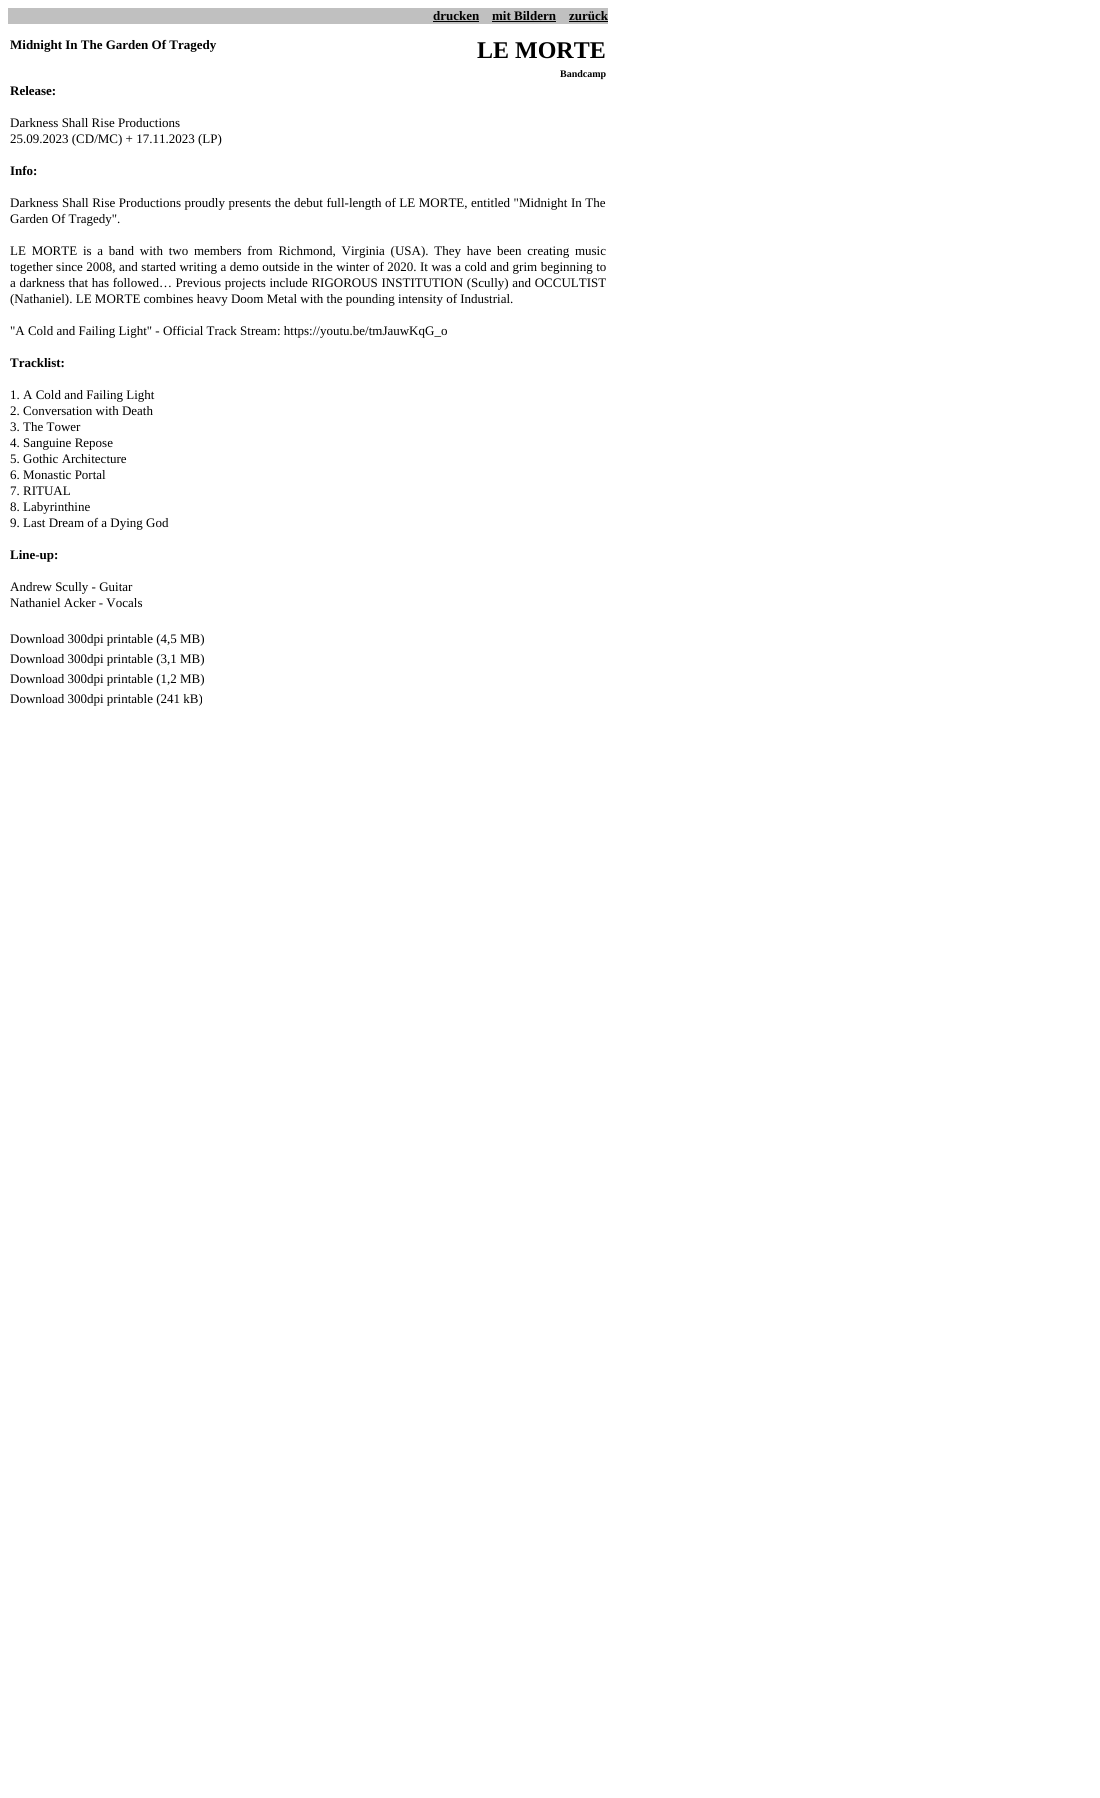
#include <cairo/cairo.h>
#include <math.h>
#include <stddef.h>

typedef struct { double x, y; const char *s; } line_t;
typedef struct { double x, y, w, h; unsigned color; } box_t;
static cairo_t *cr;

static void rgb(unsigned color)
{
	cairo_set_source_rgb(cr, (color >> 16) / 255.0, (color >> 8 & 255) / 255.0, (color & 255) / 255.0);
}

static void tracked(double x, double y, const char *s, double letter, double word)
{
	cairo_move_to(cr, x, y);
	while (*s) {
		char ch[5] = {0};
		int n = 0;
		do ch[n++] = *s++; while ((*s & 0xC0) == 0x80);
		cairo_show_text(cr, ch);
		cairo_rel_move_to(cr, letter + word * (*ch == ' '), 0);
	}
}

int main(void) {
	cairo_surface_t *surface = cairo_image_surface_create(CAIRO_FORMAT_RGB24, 1100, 1798);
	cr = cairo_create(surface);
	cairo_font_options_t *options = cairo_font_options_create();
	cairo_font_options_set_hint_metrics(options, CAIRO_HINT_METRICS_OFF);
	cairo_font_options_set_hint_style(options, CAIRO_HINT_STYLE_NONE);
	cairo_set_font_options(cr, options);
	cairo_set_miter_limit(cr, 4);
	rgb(0xffffff);
	cairo_paint(cr);
	{
		static const box_t items[] = {
			{8, 8, 600, 16, 0xc0c0c0},
			{433, 21, 46, 1, 0x000000},
			{492, 21, 64, 1, 0x000000},
			{569, 21, 39, 1, 0x000000},
		};
		for (size_t i = 0; i < sizeof items / sizeof *items; i++) {
			rgb(items[i].color);
			cairo_rectangle(cr, items[i].x, items[i].y, items[i].w, items[i].h);
			cairo_fill(cr);
		}
	}
	cairo_select_font_face(cr, "Liberation Serif", CAIRO_FONT_SLANT_NORMAL, CAIRO_FONT_WEIGHT_BOLD);
	cairo_set_font_size(cr, 13);
	{
		static const line_t items[] = {
			{433, 20, "drucken"},
			{492, 20, "mit Bildern"},
			{569, 20, "zurück"},
			{10, 49, "Midnight In The Garden Of Tragedy"},
		};
		for (size_t i = 0; i < sizeof items / sizeof *items; i++) {
			cairo_move_to(cr, items[i].x, items[i].y);
			cairo_show_text(cr, items[i].s);
		}
	}
	cairo_set_font_size(cr, 24);
	cairo_move_to(cr, 477, 58);
	cairo_show_text(cr, "LE MORTE");
	cairo_set_font_size(cr, 10);
	cairo_move_to(cr, 560, 77);
	cairo_show_text(cr, "Bandcamp");
	cairo_set_font_size(cr, 13);
	cairo_move_to(cr, 10, 95);
	cairo_show_text(cr, "Release:");
	cairo_select_font_face(cr, "Liberation Serif", CAIRO_FONT_SLANT_NORMAL, CAIRO_FONT_WEIGHT_NORMAL);
	cairo_move_to(cr, 10, 127);
	cairo_show_text(cr, "Darkness Shall Rise Productions");
	cairo_move_to(cr, 10, 143);
	cairo_show_text(cr, "25.09.2023 (CD/MC) + 17.11.2023 (LP)");
	cairo_select_font_face(cr, "Liberation Serif", CAIRO_FONT_SLANT_NORMAL, CAIRO_FONT_WEIGHT_BOLD);
	cairo_move_to(cr, 10, 175);
	cairo_show_text(cr, "Info:");
	cairo_select_font_face(cr, "Liberation Serif", CAIRO_FONT_SLANT_NORMAL, CAIRO_FONT_WEIGHT_NORMAL);
	tracked(10, 207, "Darkness Shall Rise Productions proudly presents the debut full-length of LE MORTE, entitled \"Midnight In The", 0, 0.3);
	cairo_move_to(cr, 10, 223);
	cairo_show_text(cr, "Garden Of Tragedy\".");
	tracked(10, 255, "LE MORTE is a band with two members from Richmond, Virginia (USA). They have been creating music", 0, 2.5);
	tracked(10, 271, "together since 2008, and started writing a demo outside in the winter of 2020. It was a cold and grim beginning to", 0, 0.25);
	tracked(10, 287, "a darkness that has followed… Previous projects include RIGOROUS INSTITUTION (Scully) and OCCULTIST", 0, 0.4);
	cairo_move_to(cr, 10, 303);
	cairo_show_text(cr, "(Nathaniel). LE MORTE combines heavy Doom Metal with the pounding intensity of Industrial.");
	cairo_move_to(cr, 10, 335);
	cairo_show_text(cr, "\"A Cold and Failing Light\" - Official Track Stream: https://youtu.be/tmJauwKqG_o");
	cairo_select_font_face(cr, "Liberation Serif", CAIRO_FONT_SLANT_NORMAL, CAIRO_FONT_WEIGHT_BOLD);
	cairo_move_to(cr, 10, 367);
	cairo_show_text(cr, "Tracklist:");
	cairo_select_font_face(cr, "Liberation Serif", CAIRO_FONT_SLANT_NORMAL, CAIRO_FONT_WEIGHT_NORMAL);
	{
		static const line_t items[] = {
			{10, 399, "1. A Cold and Failing Light"},
			{10, 415, "2. Conversation with Death"},
			{10, 431, "3. The Tower"},
			{10, 447, "4. Sanguine Repose"},
			{10, 463, "5. Gothic Architecture"},
			{10, 479, "6. Monastic Portal"},
			{10, 495, "7. RITUAL"},
			{10, 511, "8. Labyrinthine"},
			{10, 527, "9. Last Dream of a Dying God"},
		};
		for (size_t i = 0; i < sizeof items / sizeof *items; i++) {
			cairo_move_to(cr, items[i].x, items[i].y);
			cairo_show_text(cr, items[i].s);
		}
	}
	cairo_select_font_face(cr, "Liberation Serif", CAIRO_FONT_SLANT_NORMAL, CAIRO_FONT_WEIGHT_BOLD);
	cairo_move_to(cr, 10, 559);
	cairo_show_text(cr, "Line-up:");
	cairo_select_font_face(cr, "Liberation Serif", CAIRO_FONT_SLANT_NORMAL, CAIRO_FONT_WEIGHT_NORMAL);
	{
		static const line_t items[] = {
			{10, 591, "Andrew Scully - Guitar"},
			{10, 607, "Nathaniel Acker - Vocals"},
			{10, 643, "Download 300dpi printable (4,5 MB)"},
			{10, 663, "Download 300dpi printable (3,1 MB)"},
			{10, 683, "Download 300dpi printable (1,2 MB)"},
			{10, 703, "Download 300dpi printable (241 kB)"},
		};
		for (size_t i = 0; i < sizeof items / sizeof *items; i++) {
			cairo_move_to(cr, items[i].x, items[i].y);
			cairo_show_text(cr, items[i].s);
		}
	}
	cairo_surface_write_to_png(surface, "page.png");
	cairo_font_options_destroy(options);
	cairo_destroy(cr);
	cairo_surface_destroy(surface);
	return 0;
}
